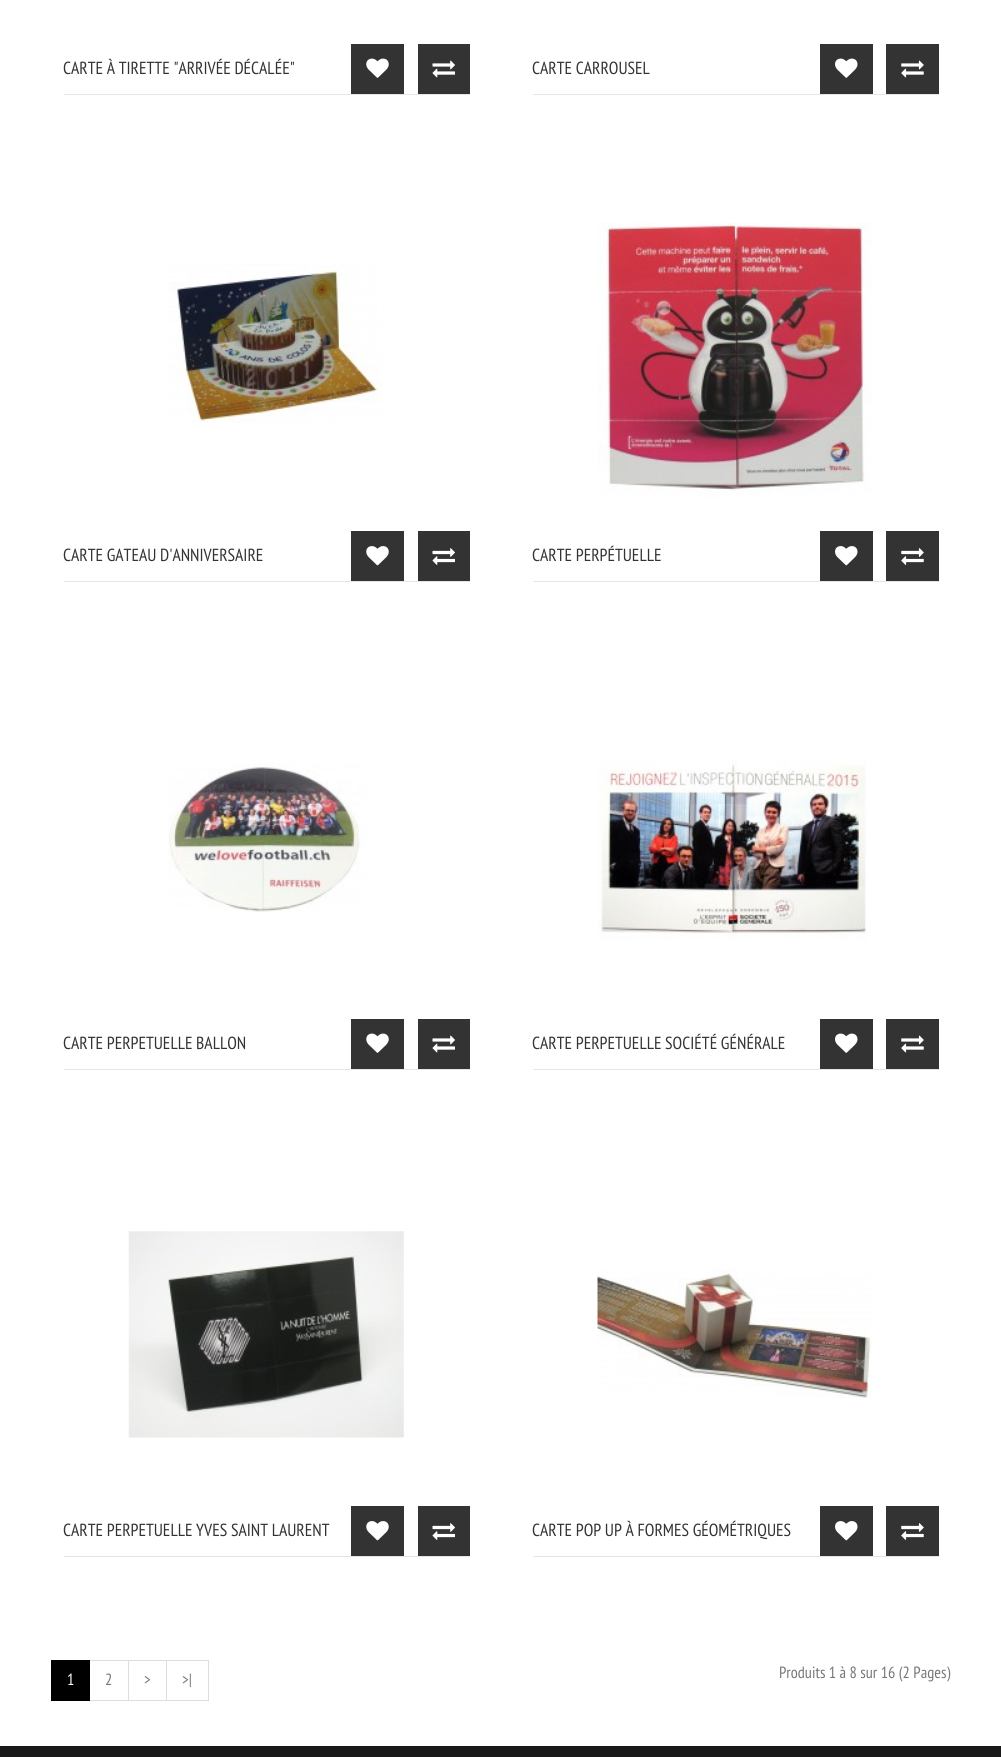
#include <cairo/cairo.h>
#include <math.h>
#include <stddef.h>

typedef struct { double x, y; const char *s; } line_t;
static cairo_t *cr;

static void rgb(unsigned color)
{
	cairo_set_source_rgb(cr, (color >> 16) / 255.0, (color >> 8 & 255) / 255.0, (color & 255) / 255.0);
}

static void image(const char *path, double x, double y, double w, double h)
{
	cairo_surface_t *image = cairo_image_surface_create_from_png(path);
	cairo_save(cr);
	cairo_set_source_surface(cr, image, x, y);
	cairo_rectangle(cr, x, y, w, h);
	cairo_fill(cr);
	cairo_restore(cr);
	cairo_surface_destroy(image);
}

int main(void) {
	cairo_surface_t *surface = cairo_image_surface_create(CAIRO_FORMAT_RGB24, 1001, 1757);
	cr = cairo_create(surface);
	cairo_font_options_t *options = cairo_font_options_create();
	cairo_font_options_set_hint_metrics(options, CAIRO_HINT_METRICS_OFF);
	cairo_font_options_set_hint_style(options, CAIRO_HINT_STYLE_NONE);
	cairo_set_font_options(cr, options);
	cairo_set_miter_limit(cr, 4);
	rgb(0xffffff);
	cairo_paint(cr);
	rgb(0xe5e5e5);
	cairo_rectangle(cr, 64, 94, 406, 1);
	cairo_fill(cr);
	rgb(0x333333);
	cairo_rectangle(cr, 351, 44, 53, 50);
	cairo_fill(cr);
	image("img/1.png", 366, 58, 23, 20);
	cairo_rectangle(cr, 418, 44, 52, 50);
	cairo_fill(cr);
	image("img/2.png", 432, 60, 23, 18);
	rgb(0xe5e5e5);
	cairo_rectangle(cr, 533, 94, 406, 1);
	cairo_fill(cr);
	rgb(0x333333);
	cairo_rectangle(cr, 820, 44, 53, 50);
	cairo_fill(cr);
	image("img/3.png", 835, 58, 23, 20);
	cairo_rectangle(cr, 886, 44, 53, 50);
	cairo_fill(cr);
	image("img/4.png", 901, 60, 23, 18);
	image("img/5.png", 169, 263, 214, 160);
	rgb(0xe5e5e5);
	cairo_rectangle(cr, 64, 581, 406, 1);
	cairo_fill(cr);
	rgb(0x333333);
	cairo_rectangle(cr, 351, 531, 53, 50);
	cairo_fill(cr);
	image("img/6.png", 366, 546, 23, 20);
	cairo_rectangle(cr, 418, 531, 52, 50);
	cairo_fill(cr);
	image("img/7.png", 432, 548, 23, 17);
	image("img/8.png", 597, 222, 276, 276);
	rgb(0xe5e5e5);
	cairo_rectangle(cr, 533, 581, 406, 1);
	cairo_fill(cr);
	rgb(0x333333);
	cairo_rectangle(cr, 820, 531, 53, 50);
	cairo_fill(cr);
	image("img/9.png", 835, 546, 23, 20);
	cairo_rectangle(cr, 886, 531, 53, 50);
	cairo_fill(cr);
	image("img/10.png", 901, 548, 23, 17);
	image("img/11.png", 168, 763, 199, 149);
	rgb(0xe5e5e5);
	cairo_rectangle(cr, 64, 1069, 406, 1);
	cairo_fill(cr);
	rgb(0x333333);
	cairo_rectangle(cr, 351, 1019, 53, 50);
	cairo_fill(cr);
	image("img/1.png", 366, 1033, 23, 20);
	cairo_rectangle(cr, 418, 1019, 52, 50);
	cairo_fill(cr);
	image("img/2.png", 432, 1035, 23, 18);
	image("img/12.png", 597, 760, 270, 180);
	rgb(0xe5e5e5);
	cairo_rectangle(cr, 533, 1069, 406, 1);
	cairo_fill(cr);
	rgb(0x333333);
	cairo_rectangle(cr, 820, 1019, 53, 50);
	cairo_fill(cr);
	image("img/3.png", 835, 1033, 23, 20);
	cairo_rectangle(cr, 886, 1019, 53, 50);
	cairo_fill(cr);
	image("img/4.png", 901, 1035, 23, 18);
	image("img/13.png", 128, 1231, 276, 207);
	rgb(0xe5e5e5);
	cairo_rectangle(cr, 64, 1556, 406, 1);
	cairo_fill(cr);
	rgb(0x333333);
	cairo_rectangle(cr, 351, 1506, 53, 50);
	cairo_fill(cr);
	image("img/6.png", 366, 1521, 23, 20);
	cairo_rectangle(cr, 418, 1506, 52, 50);
	cairo_fill(cr);
	image("img/7.png", 432, 1523, 23, 17);
	image("img/14.png", 597, 1269, 276, 129);
	rgb(0xe5e5e5);
	cairo_rectangle(cr, 533, 1556, 406, 1);
	cairo_fill(cr);
	rgb(0x333333);
	cairo_rectangle(cr, 820, 1506, 53, 50);
	cairo_fill(cr);
	image("img/9.png", 835, 1521, 23, 20);
	cairo_rectangle(cr, 886, 1506, 53, 50);
	cairo_fill(cr);
	image("img/10.png", 901, 1523, 23, 17);
	cairo_rectangle(cr, 89.5, 1660.5, 39, 40);
	rgb(0xdddddd);
	cairo_set_line_width(cr, 1);
	cairo_stroke(cr);
	rgb(0x000000);
	cairo_rectangle(cr, 51, 1660, 39, 41);
	cairo_fill(cr);
	cairo_rectangle(cr, 128.5, 1660.5, 39, 40);
	rgb(0xdddddd);
	cairo_stroke(cr);
	rgb(0xffffff);
	cairo_rectangle(cr, 167, 1661, 1, 39);
	cairo_fill(cr);
	cairo_rectangle(cr, 166.5, 1660.5, 42, 40);
	rgb(0xdddddd);
	cairo_stroke(cr);
	rgb(0x191919);
	cairo_rectangle(cr, 0, 1746, 1001, 11);
	cairo_fill(cr);
	cairo_select_font_face(cr, "PT Sans Narrow", CAIRO_FONT_SLANT_NORMAL, CAIRO_FONT_WEIGHT_NORMAL);
	cairo_set_font_size(cr, 17.5);
	rgb(0x333333);
	{
		static const line_t items[] = {
			{63, 74, "CARTE À TIRETTE \"ARRIVÉE DÉCALÉE\""},
			{532, 74, "CARTE CARROUSEL"},
			{63, 561, "CARTE GATEAU D'ANNIVERSAIRE"},
			{532, 561, "CARTE PERPÉTUELLE"},
			{63, 1049, "CARTE PERPETUELLE BALLON"},
			{532, 1049, "CARTE PERPETUELLE SOCIÉTÉ GÉNÉRALE"},
			{63, 1536, "CARTE PERPETUELLE YVES SAINT LAURENT"},
			{532, 1536, "CARTE POP UP À FORMES GÉOMÉTRIQUES"},
		};
		for (size_t i = 0; i < sizeof items / sizeof *items; i++) {
			cairo_move_to(cr, items[i].x, items[i].y);
			cairo_show_text(cr, items[i].s);
		}
	}
	cairo_set_font_size(cr, 16.25);
	rgb(0xffffff);
	cairo_move_to(cr, 67, 1685);
	cairo_show_text(cr, "1");
	rgb(0x777777);
	{
		static const line_t items[] = {
			{105, 1685, "2"},
			{144, 1685, ">"},
			{182, 1685, ">|"},
			{779, 1678, "Produits 1 à 8 sur 16 (2 Pages)"},
		};
		for (size_t i = 0; i < sizeof items / sizeof *items; i++) {
			cairo_move_to(cr, items[i].x, items[i].y);
			cairo_show_text(cr, items[i].s);
		}
	}
	cairo_surface_write_to_png(surface, "page.png");
	cairo_font_options_destroy(options);
	cairo_destroy(cr);
	cairo_surface_destroy(surface);
	return 0;
}
